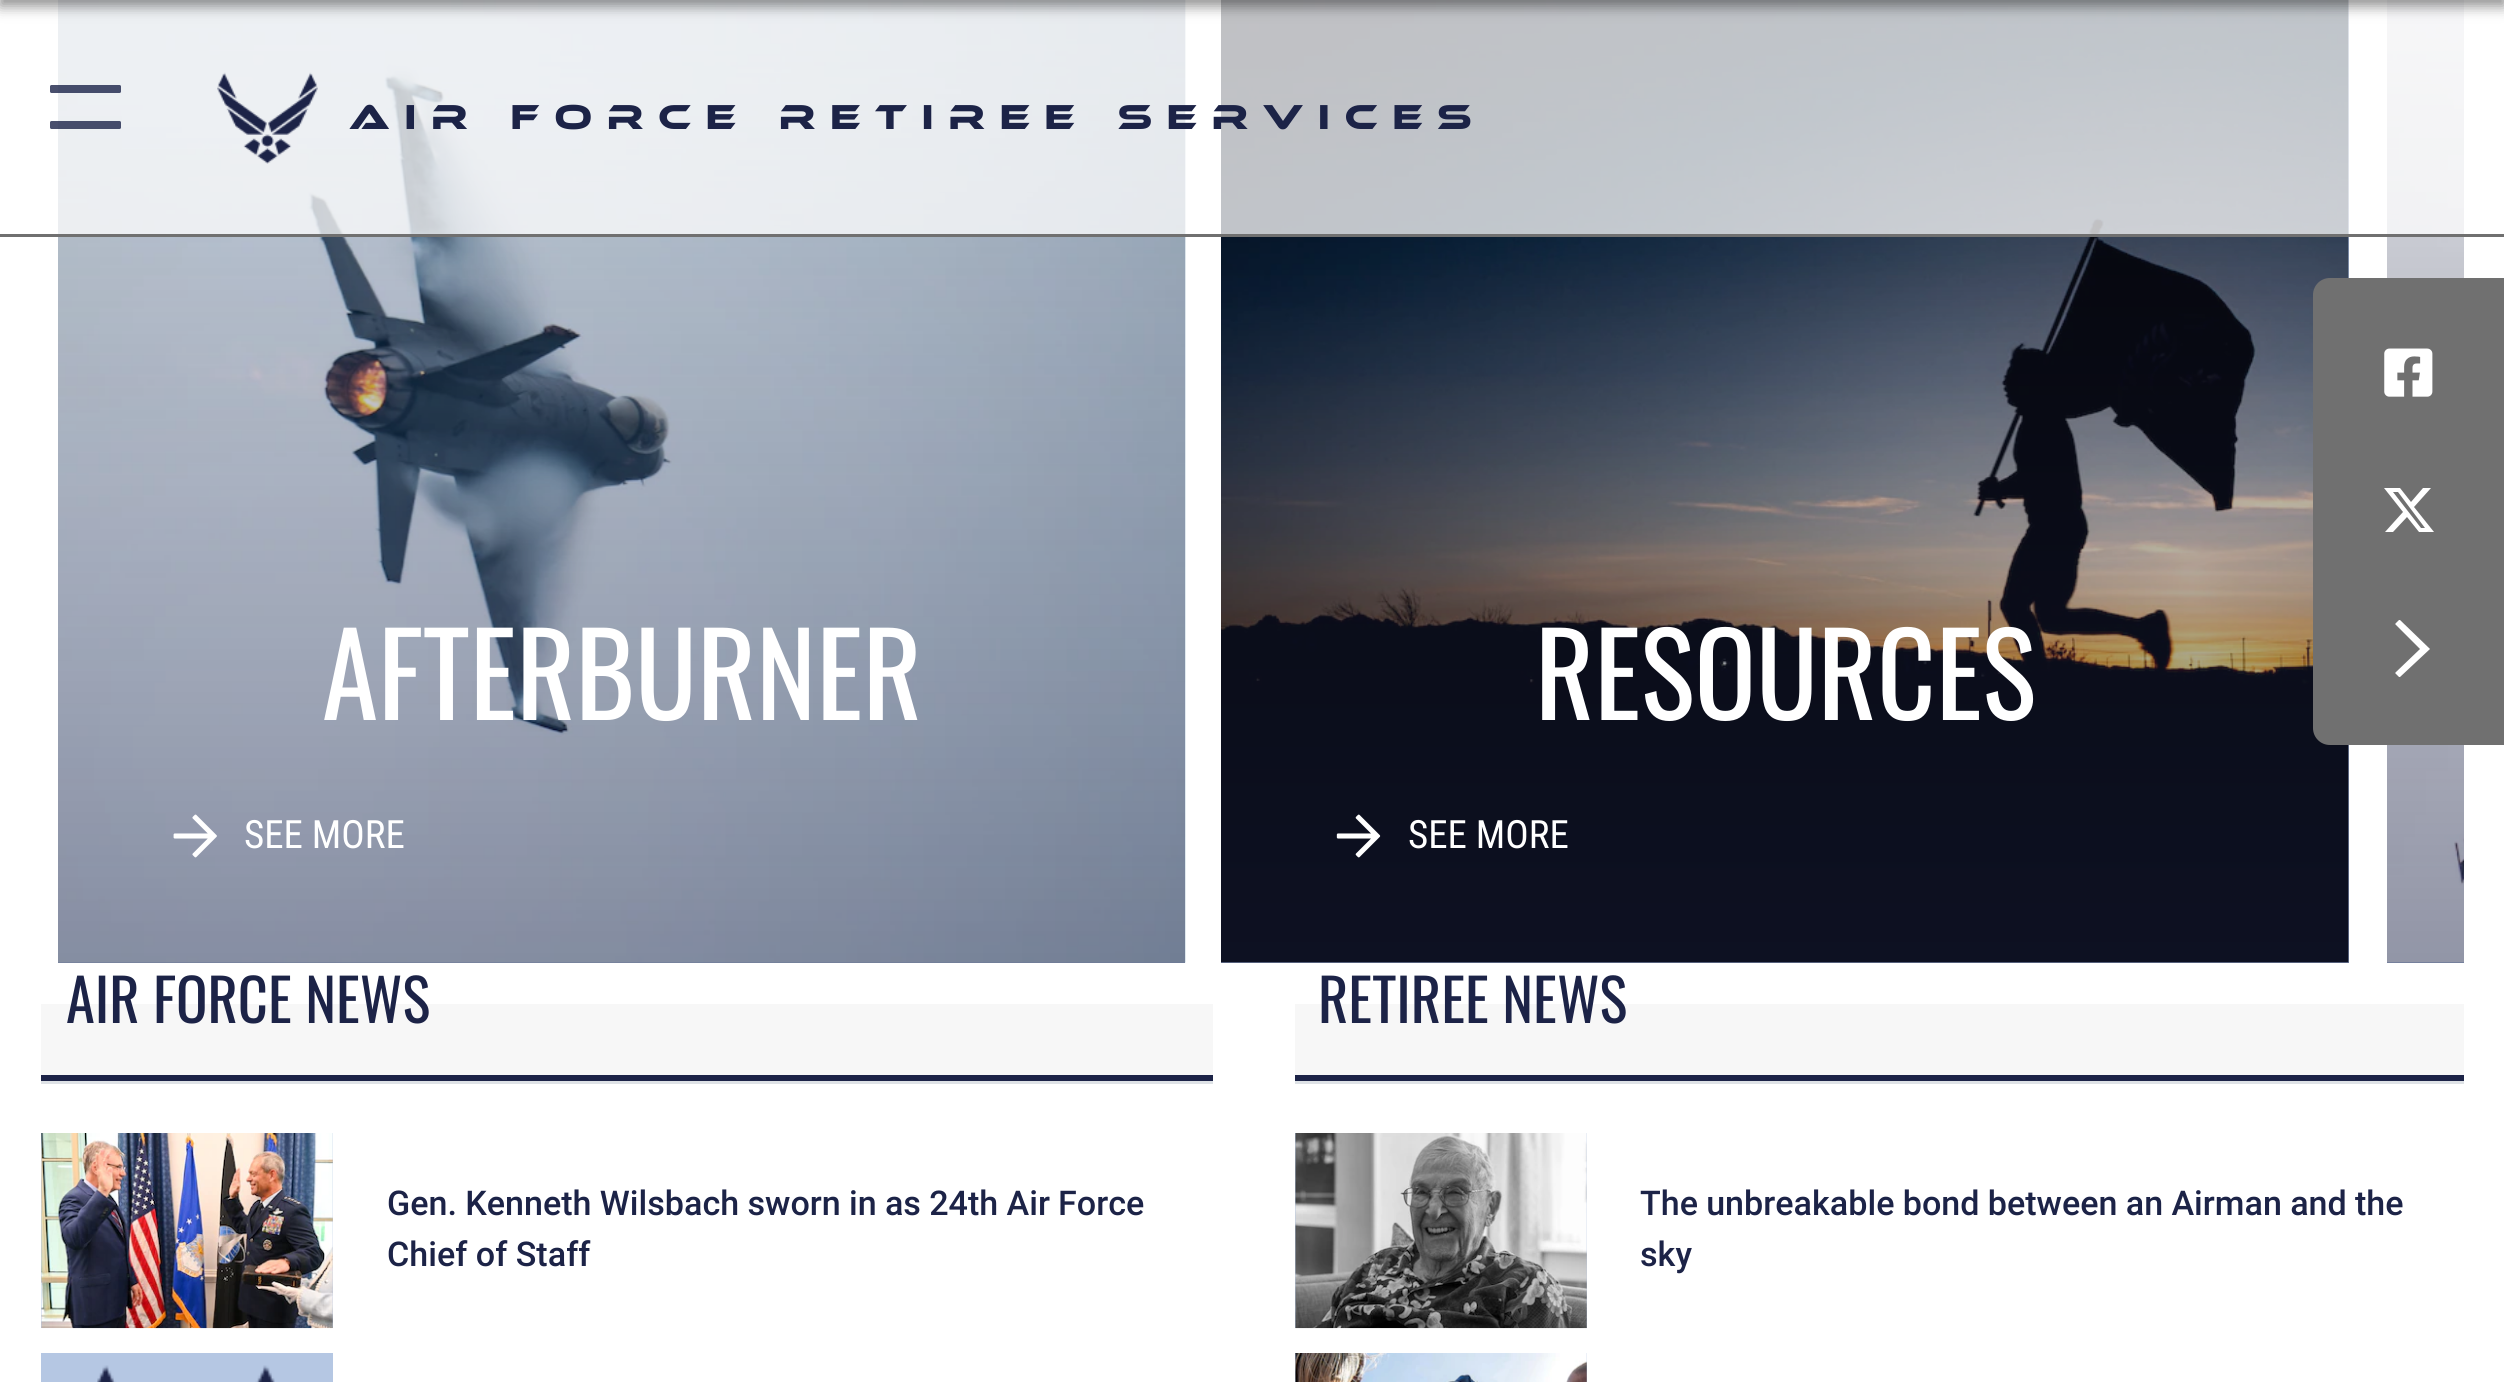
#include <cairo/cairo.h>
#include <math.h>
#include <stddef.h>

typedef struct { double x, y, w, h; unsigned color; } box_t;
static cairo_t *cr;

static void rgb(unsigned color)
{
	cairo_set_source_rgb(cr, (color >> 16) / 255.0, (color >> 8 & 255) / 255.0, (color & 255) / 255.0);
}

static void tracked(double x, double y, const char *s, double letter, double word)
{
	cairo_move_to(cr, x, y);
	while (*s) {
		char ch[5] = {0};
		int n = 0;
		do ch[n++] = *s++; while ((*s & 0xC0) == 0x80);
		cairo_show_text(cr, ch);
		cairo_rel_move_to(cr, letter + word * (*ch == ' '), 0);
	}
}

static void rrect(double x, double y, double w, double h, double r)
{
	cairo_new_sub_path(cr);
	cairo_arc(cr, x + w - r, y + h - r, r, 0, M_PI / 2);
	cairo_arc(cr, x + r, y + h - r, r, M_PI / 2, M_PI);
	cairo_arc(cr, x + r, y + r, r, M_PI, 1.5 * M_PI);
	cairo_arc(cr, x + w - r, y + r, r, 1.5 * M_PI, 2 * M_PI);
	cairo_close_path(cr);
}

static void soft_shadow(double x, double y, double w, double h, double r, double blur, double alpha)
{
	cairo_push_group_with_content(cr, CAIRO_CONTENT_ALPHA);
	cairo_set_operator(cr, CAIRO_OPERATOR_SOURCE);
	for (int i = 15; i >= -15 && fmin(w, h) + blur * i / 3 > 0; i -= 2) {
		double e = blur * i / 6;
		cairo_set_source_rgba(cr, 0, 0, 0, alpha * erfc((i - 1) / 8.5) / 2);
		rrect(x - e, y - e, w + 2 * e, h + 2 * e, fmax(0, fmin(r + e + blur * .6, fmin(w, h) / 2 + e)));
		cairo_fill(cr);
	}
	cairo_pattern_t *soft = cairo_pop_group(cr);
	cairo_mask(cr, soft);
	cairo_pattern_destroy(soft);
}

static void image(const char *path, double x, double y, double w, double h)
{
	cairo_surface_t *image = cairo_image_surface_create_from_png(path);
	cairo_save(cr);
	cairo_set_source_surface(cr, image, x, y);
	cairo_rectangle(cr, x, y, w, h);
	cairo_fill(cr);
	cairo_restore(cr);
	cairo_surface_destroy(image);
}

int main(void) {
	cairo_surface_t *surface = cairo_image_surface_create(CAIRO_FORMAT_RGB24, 2504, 1382);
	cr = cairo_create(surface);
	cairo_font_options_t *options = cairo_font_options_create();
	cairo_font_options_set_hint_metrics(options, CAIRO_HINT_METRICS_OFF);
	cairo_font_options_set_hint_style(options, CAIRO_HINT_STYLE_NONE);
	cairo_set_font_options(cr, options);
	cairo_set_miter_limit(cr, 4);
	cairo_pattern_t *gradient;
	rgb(0xffffff);
	cairo_paint(cr);
	rgb(0xb5c7e3);
	cairo_rectangle(cr, 58, 0, 1127, 963);
	cairo_fill(cr);
	image("img/3.png", 58, 0, 1128, 963);
	gradient = cairo_pattern_create_linear(622, 0, 622, 963);
	cairo_pattern_add_color_stop_rgba(gradient, 0.05, 0.11, 0.137, 0.278, 0.15);
	cairo_pattern_add_color_stop_rgba(gradient, 1, 0.11, 0.137, 0.278, 0.48);
	cairo_set_source(cr, gradient);
	cairo_pattern_destroy(gradient);
	cairo_rectangle(cr, 58, 0, 1127, 963);
	cairo_fill(cr);
	rgb(0xb5c7e3);
	cairo_rectangle(cr, 1221, 0, 1128, 963);
	cairo_fill(cr);
	image("img/5.png", 1221, 0, 1128, 963);
	gradient = cairo_pattern_create_linear(1785, 0, 1785, 963);
	cairo_pattern_add_color_stop_rgba(gradient, 0.05, 0.11, 0.137, 0.278, 0.15);
	cairo_pattern_add_color_stop_rgba(gradient, 1, 0.11, 0.137, 0.278, 0.48);
	cairo_set_source(cr, gradient);
	cairo_pattern_destroy(gradient);
	cairo_rectangle(cr, 1221, 0, 1128, 963);
	cairo_fill(cr);
	rgb(0xb5c7e3);
	cairo_rectangle(cr, 2387, 962, 77, 1);
	cairo_fill(cr);
	image("img/7.png", 2387, 0, 77, 963);
	gradient = cairo_pattern_create_linear(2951, 0, 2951, 963);
	cairo_pattern_add_color_stop_rgba(gradient, 0.05, 0.11, 0.137, 0.278, 0.15);
	cairo_pattern_add_color_stop_rgba(gradient, 1, 0.11, 0.137, 0.278, 0.48);
	cairo_set_source(cr, gradient);
	cairo_pattern_destroy(gradient);
	cairo_rectangle(cr, 2387, 0, 77, 963);
	cairo_fill(cr);
	cairo_set_source_rgba(cr, 1, 1, 1, 0.75);
	cairo_rectangle(cr, 58, 0, 2406, 234);
	cairo_fill(cr);
	rgb(0x000000);
	soft_shadow(0, -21, 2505, 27, 0, 7, 0.45);
	rgb(0x707070);
	cairo_rectangle(cr, 0, 234, 2504, 3);
	cairo_fill(cr);
	cairo_set_source_rgba(cr, 0.11, 0.141, 0.286, 0.8);
	rrect(50, 85, 71, 8, 1.5);
	cairo_fill(cr);
	rrect(50, 121, 71, 8, 1.5);
	cairo_fill(cr);
	image("img/1.png", 217, 72, 101, 92);
	rgb(0x707070);
	cairo_new_path(cr);
	cairo_move_to(cr, 2330, 278);
	cairo_line_to(cr, 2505, 278);
	cairo_line_to(cr, 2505, 745);
	cairo_line_to(cr, 2330, 745);
	cairo_curve_to(cr, 2320.5, 745, 2313, 737.5, 2313, 728);
	cairo_line_to(cr, 2313, 295);
	cairo_curve_to(cr, 2313, 285.5, 2320.5, 278, 2330, 278);
	cairo_close_path(cr);
	cairo_fill(cr);
	image("img/2.png", 2384, 348, 49, 49);
	rgb(0xffffff);
	cairo_new_path(cr);
	cairo_move_to(cr, 2423, 488);
	cairo_line_to(cr, 2431, 488);
	cairo_line_to(cr, 2414, 507);
	cairo_line_to(cr, 2434, 532);
	cairo_line_to(cr, 2419, 532);
	cairo_line_to(cr, 2407, 517);
	cairo_line_to(cr, 2393, 532);
	cairo_line_to(cr, 2385, 532);
	cairo_line_to(cr, 2403, 512);
	cairo_line_to(cr, 2384, 488);
	cairo_line_to(cr, 2400, 488);
	cairo_line_to(cr, 2411, 502);
	cairo_close_path(cr);
	cairo_move_to(cr, 2421, 528);
	cairo_line_to(cr, 2425, 528);
	cairo_line_to(cr, 2398, 492);
	cairo_line_to(cr, 2393, 492);
	cairo_close_path(cr);
	cairo_fill(cr);
	cairo_new_path(cr);
	cairo_move_to(cr, 2430, 649);
	cairo_line_to(cr, 2400, 620);
	cairo_line_to(cr, 2399, 620);
	cairo_line_to(cr, 2396, 623);
	cairo_curve_to(cr, 2395, 624, 2395, 624, 2396, 625);
	cairo_line_to(cr, 2420, 649);
	cairo_line_to(cr, 2396, 672);
	cairo_curve_to(cr, 2395, 673, 2395, 673, 2396, 674);
	cairo_line_to(cr, 2399, 677);
	cairo_line_to(cr, 2400, 677);
	cairo_close_path(cr);
	cairo_fill(cr);
	image("img/4.png", 173, 814, 44, 44);
	image("img/6.png", 1336, 814, 45, 44);
	gradient = cairo_pattern_create_linear(627, 963, 627, 1081);
	cairo_pattern_add_color_stop_rgba(gradient, 0, 1, 1, 1, 1);
	cairo_pattern_add_color_stop_rgba(gradient, 0.35, 1, 1, 1, 1);
	cairo_pattern_add_color_stop_rgba(gradient, 0.35, 0.969, 0.969, 0.969, 1);
	cairo_pattern_add_color_stop_rgba(gradient, 1, 0.969, 0.969, 0.969, 1);
	cairo_set_source(cr, gradient);
	cairo_pattern_destroy(gradient);
	cairo_rectangle(cr, 41, 1004, 1172, 71);
	cairo_fill(cr);
	{
		static const box_t items[] = {
			{41, 1081, 1172, 3, 0xdee2e6},
			{41, 1075, 1172, 6, 0x1c2347},
			{41, 1133, 292, 195, 0xb5c7e3},
		};
		for (size_t i = 0; i < sizeof items / sizeof *items; i++) {
			rgb(items[i].color);
			cairo_rectangle(cr, items[i].x, items[i].y, items[i].w, items[i].h);
			cairo_fill(cr);
		}
	}
	image("img/8.png", 41, 1133, 292, 196);
	cairo_rectangle(cr, 41, 1353, 292, 29);
	cairo_fill(cr);
	image("img/9.png", 97, 1365, 178, 17);
	gradient = cairo_pattern_create_linear(1880, 963, 1880, 1081);
	cairo_pattern_add_color_stop_rgba(gradient, 0, 1, 1, 1, 1);
	cairo_pattern_add_color_stop_rgba(gradient, 0.35, 1, 1, 1, 1);
	cairo_pattern_add_color_stop_rgba(gradient, 0.35, 0.969, 0.969, 0.969, 1);
	cairo_pattern_add_color_stop_rgba(gradient, 1, 0.969, 0.969, 0.969, 1);
	cairo_set_source(cr, gradient);
	cairo_pattern_destroy(gradient);
	cairo_rectangle(cr, 1295, 1004, 1169, 71);
	cairo_fill(cr);
	{
		static const box_t items[] = {
			{1295, 1081, 1169, 3, 0xdee2e6},
			{1295, 1075, 1169, 6, 0x1c2347},
			{1295, 1133, 292, 195, 0xb5c7e3},
		};
		for (size_t i = 0; i < sizeof items / sizeof *items; i++) {
			rgb(items[i].color);
			cairo_rectangle(cr, items[i].x, items[i].y, items[i].w, items[i].h);
			cairo_fill(cr);
		}
	}
	image("img/10.png", 1295, 1133, 292, 196);
	cairo_rectangle(cr, 1295, 1353, 292, 29);
	cairo_fill(cr);
	image("img/11.png", 1295, 1353, 292, 29);
	cairo_select_font_face(cr, "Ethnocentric", CAIRO_FONT_SLANT_NORMAL, CAIRO_FONT_WEIGHT_NORMAL);
	cairo_set_font_size(cr, 35.75);
	rgb(0x1c2347);
	tracked(349, 129, "Air Force Retiree Services", 14.6, 0);
	cairo_select_font_face(cr, "Oswald", CAIRO_FONT_SLANT_NORMAL, CAIRO_FONT_WEIGHT_NORMAL);
	cairo_set_font_size(cr, 114);
	rgb(0xffffff);
	cairo_move_to(cr, 322, 720);
	cairo_show_text(cr, "AFTERBURNER");
	cairo_select_font_face(cr, "Roboto Condensed", CAIRO_FONT_SLANT_NORMAL, CAIRO_FONT_WEIGHT_NORMAL);
	cairo_set_font_size(cr, 39);
	cairo_move_to(cr, 244, 848);
	cairo_show_text(cr, "SEE MORE");
	cairo_select_font_face(cr, "Oswald", CAIRO_FONT_SLANT_NORMAL, CAIRO_FONT_WEIGHT_NORMAL);
	cairo_set_font_size(cr, 114);
	cairo_move_to(cr, 1535, 720);
	cairo_show_text(cr, "RESOURCES");
	cairo_select_font_face(cr, "Roboto Condensed", CAIRO_FONT_SLANT_NORMAL, CAIRO_FONT_WEIGHT_NORMAL);
	cairo_set_font_size(cr, 39);
	cairo_move_to(cr, 1408, 848);
	cairo_show_text(cr, "SEE MORE");
	cairo_select_font_face(cr, "Oswald", CAIRO_FONT_SLANT_NORMAL, CAIRO_FONT_WEIGHT_NORMAL);
	cairo_set_font_size(cr, 58.5);
	rgb(0x1c2347);
	cairo_move_to(cr, 66, 1023);
	cairo_show_text(cr, "AIR FORCE NEWS");
	cairo_select_font_face(cr, "Roboto Medium", CAIRO_FONT_SLANT_NORMAL, CAIRO_FONT_WEIGHT_NORMAL);
	cairo_set_font_size(cr, 34.1);
	tracked(387, 1215, "Gen. Kenneth Wilsbach sworn in as 24th Air Force", 0, -0.25);
	cairo_move_to(cr, 387, 1266);
	cairo_show_text(cr, "Chief of Staff");
	cairo_select_font_face(cr, "Oswald", CAIRO_FONT_SLANT_NORMAL, CAIRO_FONT_WEIGHT_NORMAL);
	cairo_set_font_size(cr, 58.5);
	cairo_move_to(cr, 1318, 1023);
	cairo_show_text(cr, "RETIREE NEWS");
	cairo_select_font_face(cr, "Roboto Medium", CAIRO_FONT_SLANT_NORMAL, CAIRO_FONT_WEIGHT_NORMAL);
	cairo_set_font_size(cr, 34.1);
	tracked(1640, 1215, "The unbreakable bond between an Airman and the", 0, -0.25);
	cairo_move_to(cr, 1640, 1266);
	cairo_show_text(cr, "sky");
	cairo_surface_write_to_png(surface, "page.png");
	cairo_font_options_destroy(options);
	cairo_destroy(cr);
	cairo_surface_destroy(surface);
	return 0;
}
